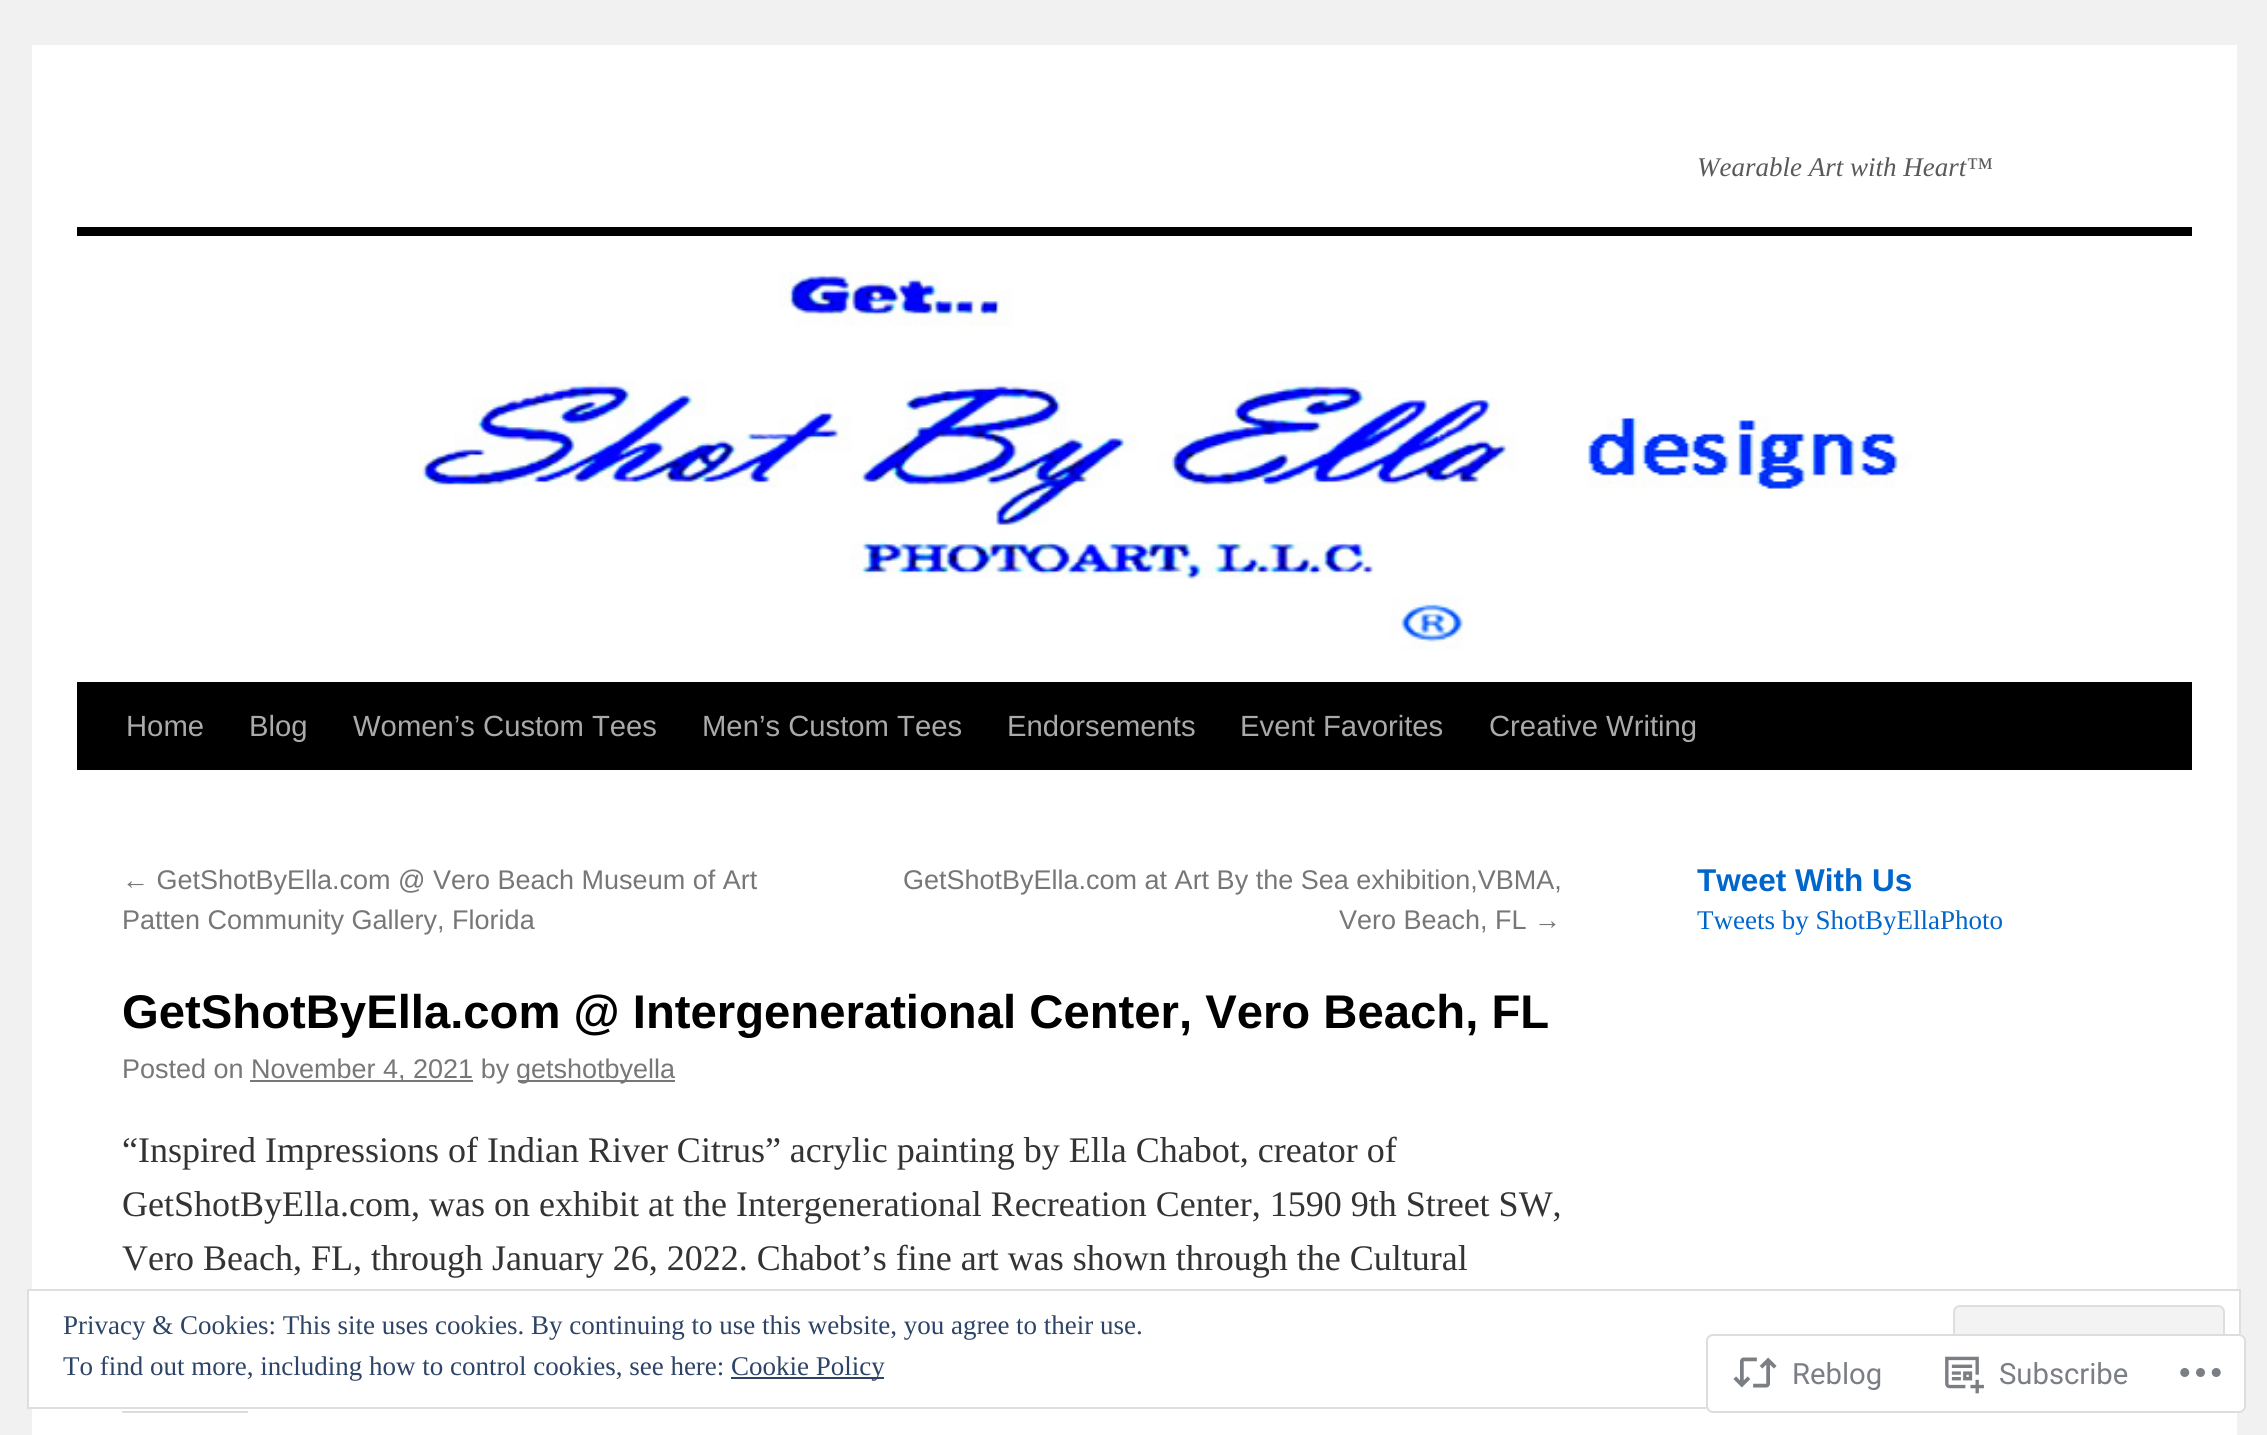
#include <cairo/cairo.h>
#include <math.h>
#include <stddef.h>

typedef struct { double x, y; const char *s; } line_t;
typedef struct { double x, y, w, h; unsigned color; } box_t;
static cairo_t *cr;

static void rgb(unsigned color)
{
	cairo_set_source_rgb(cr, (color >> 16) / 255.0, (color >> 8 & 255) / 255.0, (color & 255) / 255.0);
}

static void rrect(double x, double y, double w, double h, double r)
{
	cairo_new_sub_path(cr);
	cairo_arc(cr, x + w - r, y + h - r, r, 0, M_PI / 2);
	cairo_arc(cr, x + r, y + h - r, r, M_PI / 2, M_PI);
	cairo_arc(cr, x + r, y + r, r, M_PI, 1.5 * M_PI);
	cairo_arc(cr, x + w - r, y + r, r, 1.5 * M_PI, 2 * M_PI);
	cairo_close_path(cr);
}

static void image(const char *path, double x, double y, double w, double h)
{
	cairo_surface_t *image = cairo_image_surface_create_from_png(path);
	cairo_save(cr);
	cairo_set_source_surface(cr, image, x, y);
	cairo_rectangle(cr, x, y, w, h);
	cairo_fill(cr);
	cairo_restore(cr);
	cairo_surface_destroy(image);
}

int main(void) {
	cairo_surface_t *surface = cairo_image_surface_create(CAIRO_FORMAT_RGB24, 2267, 1435);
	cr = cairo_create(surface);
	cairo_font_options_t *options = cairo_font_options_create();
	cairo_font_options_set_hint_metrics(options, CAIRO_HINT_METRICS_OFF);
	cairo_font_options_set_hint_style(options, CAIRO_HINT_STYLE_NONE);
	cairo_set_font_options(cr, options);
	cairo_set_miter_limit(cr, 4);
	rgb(0xf1f1f1);
	cairo_paint(cr);
	{
		static const box_t items[] = {
			{32, 45, 2205, 1390, 0xffffff},
			{77, 227, 2115, 9, 0x000000},
			{77, 682, 2115, 88, 0x000000},
		};
		for (size_t i = 0; i < sizeof items / sizeof *items; i++) {
			rgb(items[i].color);
			cairo_rectangle(cr, items[i].x, items[i].y, items[i].w, items[i].h);
			cairo_fill(cr);
		}
	}
	image("img/1.png", 418, 272, 1494, 378);
	{
		static const box_t items[] = {
			{250, 1080, 223, 2, 0x777777},
			{518, 1080, 157, 2, 0x777777},
			{122, 1411, 126, 2, 0xdcdcde},
		};
		for (size_t i = 0; i < sizeof items / sizeof *items; i++) {
			rgb(items[i].color);
			cairo_rectangle(cr, items[i].x, items[i].y, items[i].w, items[i].h);
			cairo_fill(cr);
		}
	}
	rgb(0xffffff);
	cairo_rectangle(cr, 28, 1290, 2212, 118);
	cairo_fill_preserve(cr);
	rgb(0xdedede);
	cairo_stroke(cr);
	rgb(0xf3f3f3);
	rrect(1954, 1306, 270, 86, 6);
	cairo_fill_preserve(cr);
	rgb(0xdedede);
	cairo_stroke(cr);
	rgb(0x2e4467);
	cairo_rectangle(cr, 731, 1377, 153, 2);
	cairo_fill(cr);
	cairo_set_source_rgba(cr, 1, 1, 1, 0.98);
	rrect(1706, 1334, 540, 79, 7);
	cairo_fill(cr);
	rrect(1707, 1335, 538, 77, 6);
	cairo_set_source_rgba(cr, 0.863, 0.863, 0.871, 0.98);
	cairo_stroke(cr);
	image("img/2.png", 1733, 1357, 44, 31);
	image("img/3.png", 1945, 1356, 39, 38);
	image("img/4.png", 2180, 1368, 41, 9);
	cairo_select_font_face(cr, "Liberation Serif", CAIRO_FONT_SLANT_ITALIC, CAIRO_FONT_WEIGHT_NORMAL);
	cairo_set_font_size(cr, 27);
	rgb(0x595959);
	cairo_move_to(cr, 1697, 176);
	cairo_show_text(cr, "Wearable Art with Heart™");
	cairo_select_font_face(cr, "Liberation Sans", CAIRO_FONT_SLANT_NORMAL, CAIRO_FONT_WEIGHT_NORMAL);
	cairo_set_font_size(cr, 29.25);
	rgb(0xaaaaaa);
	{
		static const line_t items[] = {
			{126, 736, "Home"},
			{249, 736, "Blog"},
			{353, 736, "Women’s Custom Tees"},
			{702, 736, "Men’s Custom Tees"},
			{1007, 736, "Endorsements"},
			{1240, 736, "Event Favorites"},
			{1489, 736, "Creative Writing"},
		};
		for (size_t i = 0; i < sizeof items / sizeof *items; i++) {
			cairo_move_to(cr, items[i].x, items[i].y);
			cairo_show_text(cr, items[i].s);
		}
	}
	cairo_set_font_size(cr, 27);
	rgb(0x777777);
	{
		static const line_t items[] = {
			{122, 889, "← GetShotByElla.com @ Vero Beach Museum of Art"},
			{122, 929, "Patten Community Gallery, Florida"},
			{903, 889, "GetShotByElla.com at Art By the Sea exhibition,VBMA,"},
			{1339, 929, "Vero Beach, FL →"},
		};
		for (size_t i = 0; i < sizeof items / sizeof *items; i++) {
			cairo_move_to(cr, items[i].x, items[i].y);
			cairo_show_text(cr, items[i].s);
		}
	}
	cairo_select_font_face(cr, "Liberation Sans", CAIRO_FONT_SLANT_NORMAL, CAIRO_FONT_WEIGHT_BOLD);
	cairo_set_font_size(cr, 47.25);
	rgb(0x000000);
	cairo_move_to(cr, 122, 1028);
	cairo_show_text(cr, "GetShotByElla.com @ Intergenerational Center, Vero Beach, FL");
	cairo_select_font_face(cr, "Liberation Sans", CAIRO_FONT_SLANT_NORMAL, CAIRO_FONT_WEIGHT_NORMAL);
	cairo_set_font_size(cr, 27);
	rgb(0x777777);
	{
		static const line_t items[] = {
			{122, 1078, "Posted on"},
			{251, 1078, "November 4, 2021 by"},
			{516, 1078, "getshotbyella"},
		};
		for (size_t i = 0; i < sizeof items / sizeof *items; i++) {
			cairo_move_to(cr, items[i].x, items[i].y);
			cairo_show_text(cr, items[i].s);
		}
	}
	cairo_select_font_face(cr, "Liberation Serif", CAIRO_FONT_SLANT_NORMAL, CAIRO_FONT_WEIGHT_NORMAL);
	cairo_set_font_size(cr, 36);
	rgb(0x333333);
	{
		static const line_t items[] = {
			{122, 1162, "“Inspired Impressions of Indian River Citrus” acrylic painting by Ella Chabot, creator of"},
			{122, 1216, "GetShotByElla.com, was on exhibit at the Intergenerational Recreation Center, 1590 9th Street SW,"},
			{122, 1270, "Vero Beach, FL, through January 26, 2022. Chabot’s fine art was shown through the Cultural"},
		};
		for (size_t i = 0; i < sizeof items / sizeof *items; i++) {
			cairo_move_to(cr, items[i].x, items[i].y);
			cairo_show_text(cr, items[i].s);
		}
	}
	cairo_save(cr);
	cairo_rectangle(cr, 1697, 860, 495, 121);
	cairo_clip(cr);
	cairo_select_font_face(cr, "Liberation Sans", CAIRO_FONT_SLANT_NORMAL, CAIRO_FONT_WEIGHT_BOLD);
	cairo_set_font_size(cr, 31.5);
	rgb(0x0066cc);
	cairo_move_to(cr, 1697, 891);
	cairo_show_text(cr, "Tweet With Us");
	cairo_restore(cr);
	cairo_set_font_size(cr, 27);
	rgb(0x0066cc);
	cairo_move_to(cr, 1697, 929);
	cairo_show_text(cr, "Tweets by ShotByEllaPhoto");
	rgb(0x2e4467);
	{
		static const line_t items[] = {
			{63, 1334, "Privacy & Cookies: This site uses cookies. By continuing to use this website, you agree to their use."},
			{63, 1375, "To find out more, including how to control cookies, see here:"},
			{731, 1375, "Cookie Policy"},
		};
		for (size_t i = 0; i < sizeof items / sizeof *items; i++) {
			cairo_move_to(cr, items[i].x, items[i].y);
			cairo_show_text(cr, items[i].s);
		}
	}
	cairo_select_font_face(cr, "Roboto", CAIRO_FONT_SLANT_NORMAL, CAIRO_FONT_WEIGHT_NORMAL);
	cairo_set_font_size(cr, 29.25);
	rgb(0x7b7f85);
	cairo_move_to(cr, 1792, 1384);
	cairo_show_text(cr, "Reblog");
	cairo_move_to(cr, 1999, 1384);
	cairo_show_text(cr, "Subscribe");
	cairo_surface_write_to_png(surface, "page.png");
	cairo_font_options_destroy(options);
	cairo_destroy(cr);
	cairo_surface_destroy(surface);
	return 0;
}
